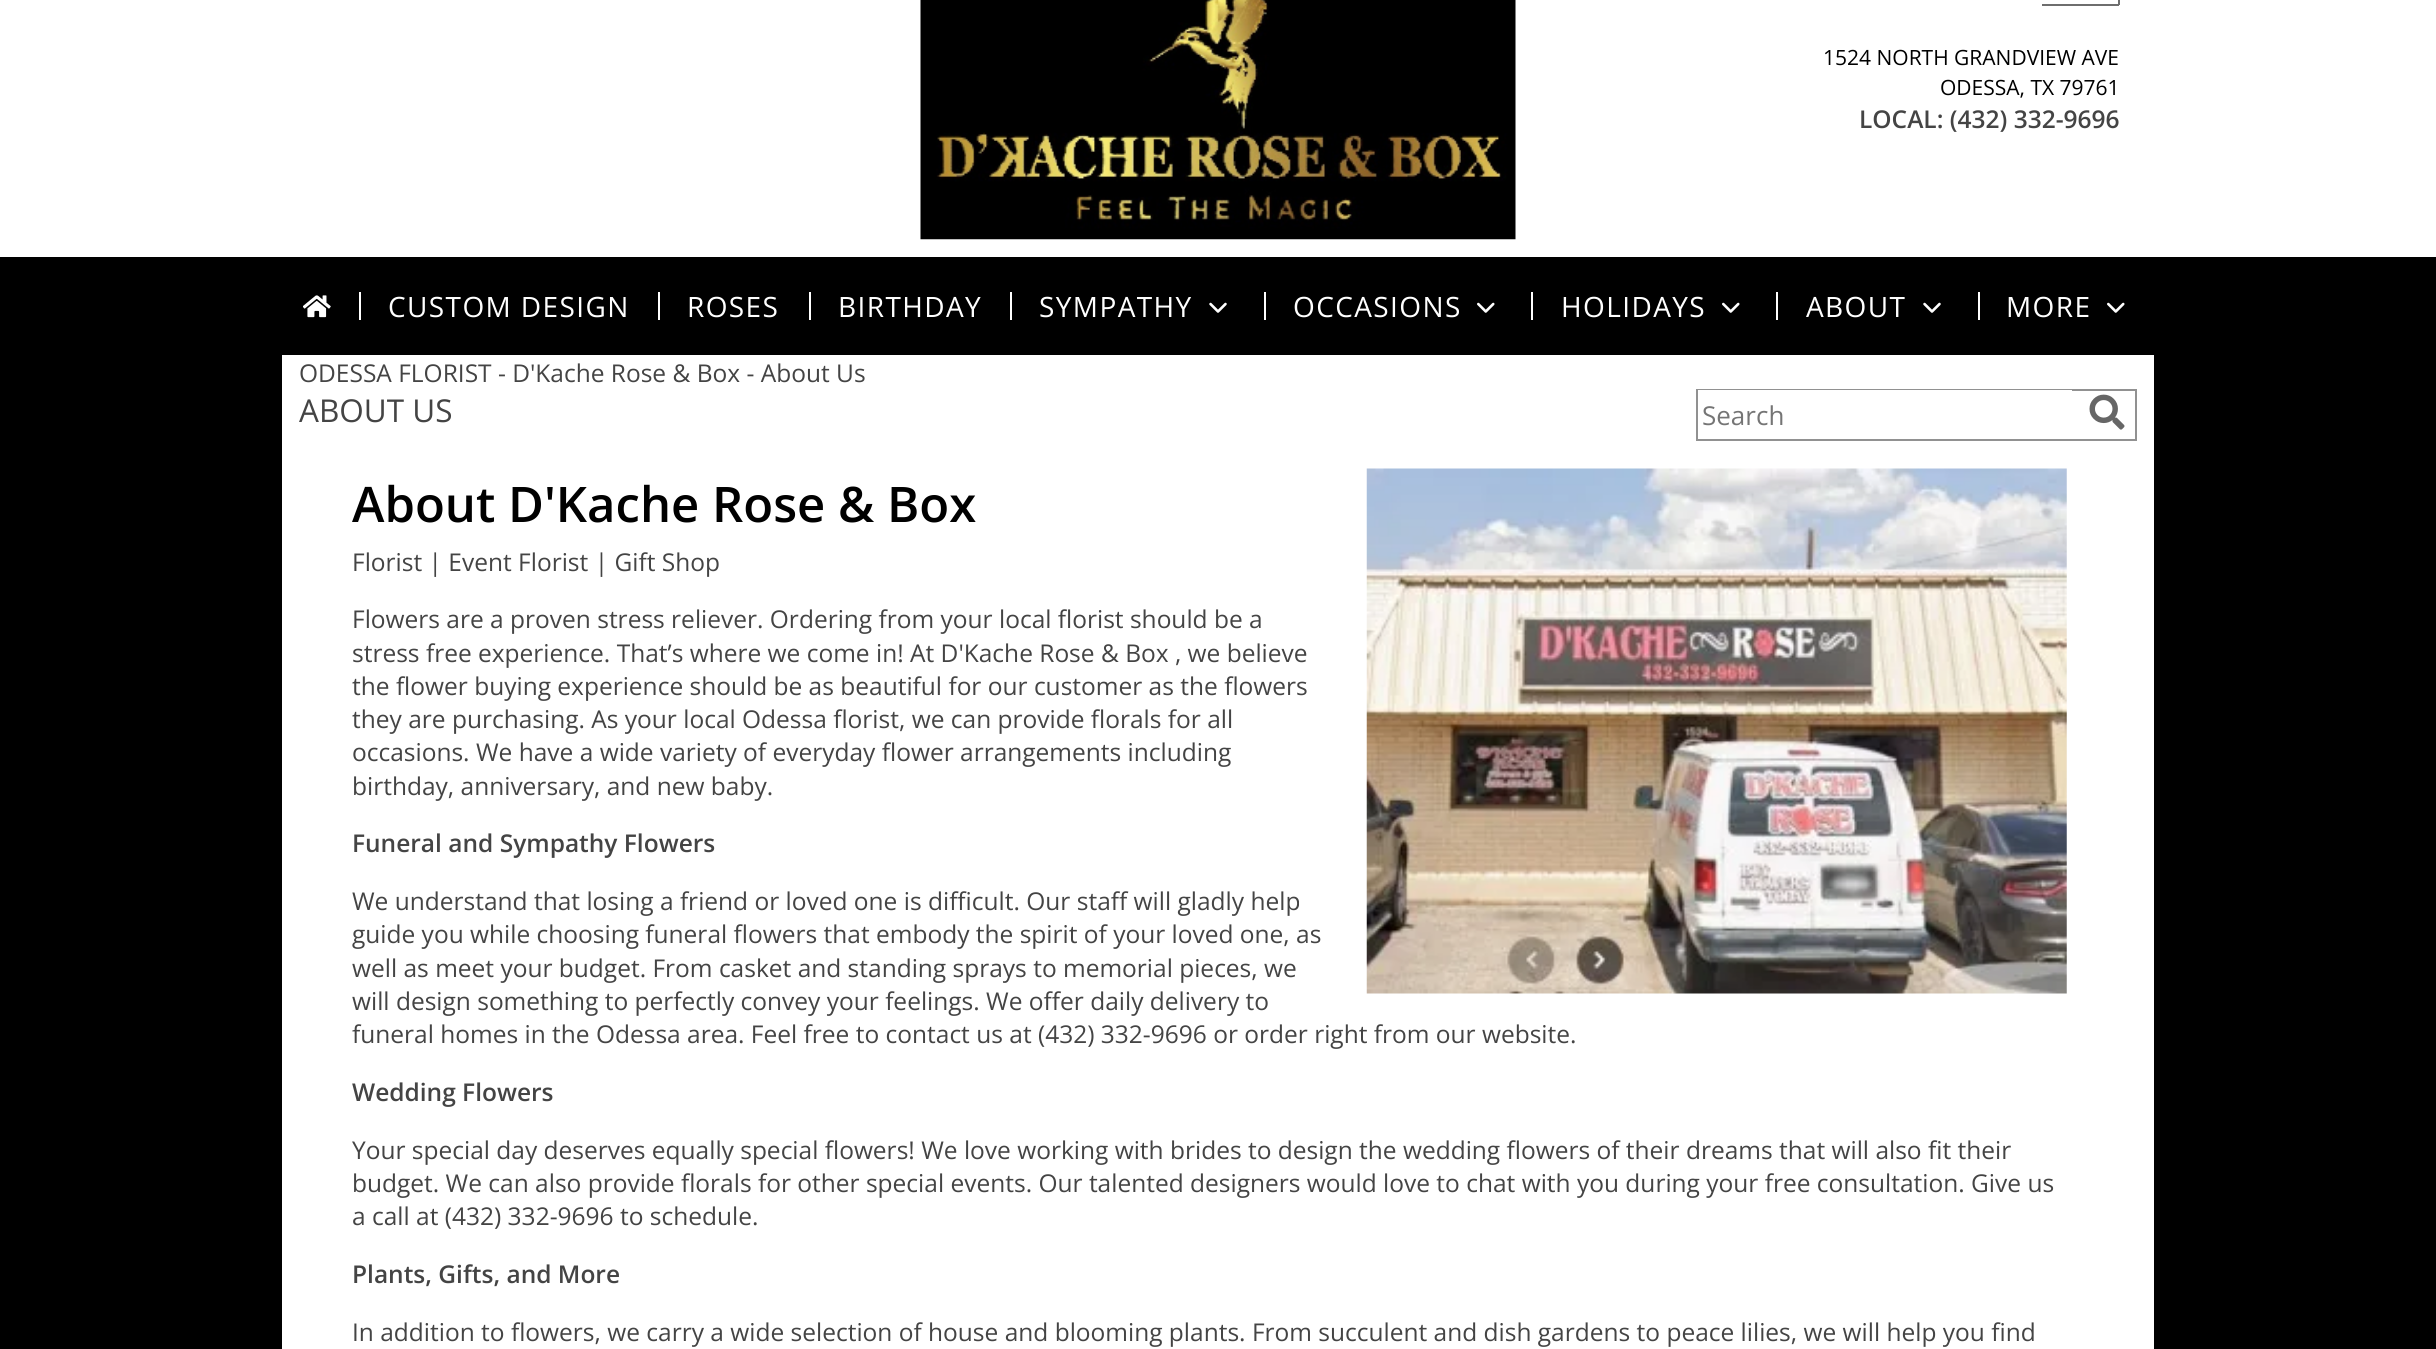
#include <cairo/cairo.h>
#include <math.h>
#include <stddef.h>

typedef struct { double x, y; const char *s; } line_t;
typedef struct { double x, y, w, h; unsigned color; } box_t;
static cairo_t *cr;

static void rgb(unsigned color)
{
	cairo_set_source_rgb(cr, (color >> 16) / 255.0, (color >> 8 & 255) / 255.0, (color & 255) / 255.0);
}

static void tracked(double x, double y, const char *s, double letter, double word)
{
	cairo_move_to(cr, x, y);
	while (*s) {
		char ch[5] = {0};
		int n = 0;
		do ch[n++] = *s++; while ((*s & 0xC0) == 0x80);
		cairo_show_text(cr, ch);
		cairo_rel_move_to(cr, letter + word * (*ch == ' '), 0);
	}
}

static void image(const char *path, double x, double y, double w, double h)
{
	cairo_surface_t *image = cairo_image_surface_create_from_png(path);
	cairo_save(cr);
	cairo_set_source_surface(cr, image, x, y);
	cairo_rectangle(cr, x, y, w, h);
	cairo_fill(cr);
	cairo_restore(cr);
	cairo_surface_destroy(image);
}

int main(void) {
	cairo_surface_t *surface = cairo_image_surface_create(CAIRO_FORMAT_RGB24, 2436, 1349);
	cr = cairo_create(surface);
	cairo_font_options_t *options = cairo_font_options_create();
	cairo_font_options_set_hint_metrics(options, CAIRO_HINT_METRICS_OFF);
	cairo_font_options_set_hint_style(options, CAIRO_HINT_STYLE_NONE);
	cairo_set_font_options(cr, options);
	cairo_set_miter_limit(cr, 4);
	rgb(0x000000);
	cairo_paint(cr);
	rgb(0xffffff);
	cairo_rectangle(cr, 282, 355, 1872, 994);
	cairo_fill(cr);
	cairo_rectangle(cr, 0, 0, 2436, 257);
	cairo_fill(cr);
	image("img/1.png", 920, 0, 596, 240);
	{
		static const box_t items[] = {
			{2042, 4, 9, 2, 0x6e6e6e},
			{2118, 0, 2, 5, 0x6e6e6e},
			{2051, 4, 68, 2, 0x6e6e6e},
		};
		for (size_t i = 0; i < sizeof items / sizeof *items; i++) {
			rgb(items[i].color);
			cairo_rectangle(cr, items[i].x, items[i].y, items[i].w, items[i].h);
			cairo_fill(cr);
		}
	}
	image("img/2.png", 303, 295, 28, 23);
	{
		static const box_t items[] = {
			{359, 292, 2, 28, 0xffffff},
			{658, 292, 2, 28, 0xffffff},
			{809, 292, 2, 28, 0xffffff},
			{1010, 292, 2, 28, 0xffffff},
		};
		for (size_t i = 0; i < sizeof items / sizeof *items; i++) {
			rgb(items[i].color);
			cairo_rectangle(cr, items[i].x, items[i].y, items[i].w, items[i].h);
			cairo_fill(cr);
		}
	}
	image("img/3.png", 1209, 302, 18, 11);
	cairo_rectangle(cr, 1264, 292, 2, 28);
	cairo_fill(cr);
	image("img/4.png", 1477, 302, 18, 11);
	cairo_rectangle(cr, 1531, 292, 2, 28);
	cairo_fill(cr);
	image("img/4.png", 1722, 302, 18, 11);
	cairo_rectangle(cr, 1776, 292, 2, 28);
	cairo_fill(cr);
	image("img/3.png", 1923, 302, 18, 11);
	cairo_rectangle(cr, 1978, 292, 2, 28);
	cairo_fill(cr);
	image("img/4.png", 2107, 302, 18, 11);
	cairo_rectangle(cr, 1697, 390, 439, 50);
	rgb(0x919191);
	cairo_stroke(cr);
	rgb(0xffffff);
	cairo_rectangle(cr, 1698, 390, 374, 1);
	cairo_fill(cr);
	image("img/5.png", 2089, 394, 36, 36);
	image("img/6.png", 1366, 468, 701, 526);
	cairo_select_font_face(cr, "Open Sans", CAIRO_FONT_SLANT_NORMAL, CAIRO_FONT_WEIGHT_NORMAL);
	cairo_set_font_size(cr, 21);
	rgb(0x000000);
	cairo_move_to(cr, 1823, 65);
	cairo_show_text(cr, "1524 NORTH GRANDVIEW AVE");
	cairo_move_to(cr, 1940, 95);
	cairo_show_text(cr, "ODESSA, TX 79761");
	cairo_select_font_face(cr, "Open Sans SemiBold", CAIRO_FONT_SLANT_NORMAL, CAIRO_FONT_WEIGHT_NORMAL);
	cairo_set_font_size(cr, 24.5);
	rgb(0x444444);
	cairo_move_to(cr, 1859, 128);
	cairo_show_text(cr, "LOCAL: (432) 332-9696");
	cairo_select_font_face(cr, "Open Sans", CAIRO_FONT_SLANT_NORMAL, CAIRO_FONT_WEIGHT_NORMAL);
	cairo_set_font_size(cr, 28);
	rgb(0xffffff);
	{
		static const line_t items[] = {
			{388, 317, "CUSTOM DESIGN"},
			{687, 317, "ROSES"},
			{838, 317, "BIRTHDAY"},
			{1039, 317, "SYMPATHY"},
			{1293, 317, "OCCASIONS"},
			{1561, 317, "HOLIDAYS"},
			{1806, 317, "ABOUT"},
			{2006, 317, "MORE"},
		};
		for (size_t i = 0; i < sizeof items / sizeof *items; i++) {
			tracked(items[i].x, items[i].y, items[i].s, 1.4, 0);
		}
	}
	cairo_set_font_size(cr, 24.5);
	rgb(0x444444);
	cairo_move_to(cr, 299, 382);
	cairo_show_text(cr, "ODESSA FLORIST - D'Kache Rose & Box - About Us");
	cairo_set_font_size(cr, 31.5);
	cairo_move_to(cr, 299, 422);
	cairo_show_text(cr, "ABOUT US");
	cairo_set_font_size(cr, 26);
	rgb(0x757575);
	cairo_move_to(cr, 1702, 425);
	cairo_show_text(cr, "Search");
	cairo_select_font_face(cr, "Open Sans SemiBold", CAIRO_FONT_SLANT_NORMAL, CAIRO_FONT_WEIGHT_NORMAL);
	cairo_set_font_size(cr, 49);
	rgb(0x000000);
	cairo_move_to(cr, 352, 522);
	cairo_show_text(cr, "About D'Kache Rose & Box");
	cairo_select_font_face(cr, "Open Sans", CAIRO_FONT_SLANT_NORMAL, CAIRO_FONT_WEIGHT_NORMAL);
	cairo_set_font_size(cr, 24.5);
	rgb(0x444444);
	{
		static const line_t items[] = {
			{352, 571, "Florist | Event Florist | Gift Shop"},
			{352, 628, "Flowers are a proven stress reliever. Ordering from your local florist should be a"},
			{352, 662, "stress free experience. That’s where we come in! At D'Kache Rose & Box , we believe"},
			{352, 695, "the flower buying experience should be as beautiful for our customer as the flowers"},
			{352, 728, "they are purchasing. As your local Odessa florist, we can provide florals for all"},
			{352, 761, "occasions. We have a wide variety of everyday flower arrangements including"},
			{352, 795, "birthday, anniversary, and new baby."},
		};
		for (size_t i = 0; i < sizeof items / sizeof *items; i++) {
			cairo_move_to(cr, items[i].x, items[i].y);
			cairo_show_text(cr, items[i].s);
		}
	}
	cairo_select_font_face(cr, "Open Sans SemiBold", CAIRO_FONT_SLANT_NORMAL, CAIRO_FONT_WEIGHT_NORMAL);
	cairo_move_to(cr, 352, 852);
	cairo_show_text(cr, "Funeral and Sympathy Flowers");
	cairo_select_font_face(cr, "Open Sans", CAIRO_FONT_SLANT_NORMAL, CAIRO_FONT_WEIGHT_NORMAL);
	{
		static const line_t items[] = {
			{352, 910, "We understand that losing a friend or loved one is difficult. Our staff will gladly help"},
			{352, 943, "guide you while choosing funeral flowers that embody the spirit of your loved one, as"},
			{352, 977, "well as meet your budget. From casket and standing sprays to memorial pieces, we"},
			{352, 1010, "will design something to perfectly convey your feelings. We offer daily delivery to"},
			{352, 1043, "funeral homes in the Odessa area. Feel free to contact us at (432) 332-9696 or order right from our website."},
		};
		for (size_t i = 0; i < sizeof items / sizeof *items; i++) {
			cairo_move_to(cr, items[i].x, items[i].y);
			cairo_show_text(cr, items[i].s);
		}
	}
	cairo_select_font_face(cr, "Open Sans SemiBold", CAIRO_FONT_SLANT_NORMAL, CAIRO_FONT_WEIGHT_NORMAL);
	cairo_move_to(cr, 352, 1101);
	cairo_show_text(cr, "Wedding Flowers");
	cairo_select_font_face(cr, "Open Sans", CAIRO_FONT_SLANT_NORMAL, CAIRO_FONT_WEIGHT_NORMAL);
	{
		static const line_t items[] = {
			{352, 1159, "Your special day deserves equally special flowers! We love working with brides to design the wedding flowers of their dreams that will also fit their"},
			{352, 1192, "budget. We can also provide florals for other special events. Our talented designers would love to chat with you during your free consultation. Give us"},
			{352, 1225, "a call at (432) 332-9696 to schedule."},
		};
		for (size_t i = 0; i < sizeof items / sizeof *items; i++) {
			cairo_move_to(cr, items[i].x, items[i].y);
			cairo_show_text(cr, items[i].s);
		}
	}
	cairo_select_font_face(cr, "Open Sans SemiBold", CAIRO_FONT_SLANT_NORMAL, CAIRO_FONT_WEIGHT_NORMAL);
	cairo_move_to(cr, 352, 1283);
	cairo_show_text(cr, "Plants, Gifts, and More");
	cairo_select_font_face(cr, "Open Sans", CAIRO_FONT_SLANT_NORMAL, CAIRO_FONT_WEIGHT_NORMAL);
	cairo_move_to(cr, 352, 1341);
	cairo_show_text(cr, "In addition to flowers, we carry a wide selection of house and blooming plants. From succulent and dish gardens to peace lilies, we will help you find");
	cairo_surface_write_to_png(surface, "page.png");
	cairo_font_options_destroy(options);
	cairo_destroy(cr);
	cairo_surface_destroy(surface);
	return 0;
}
